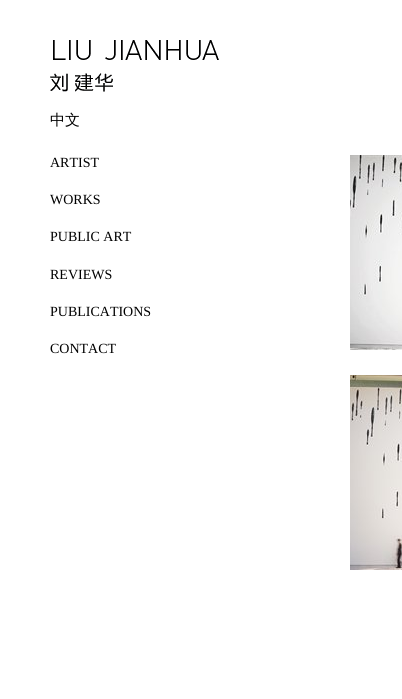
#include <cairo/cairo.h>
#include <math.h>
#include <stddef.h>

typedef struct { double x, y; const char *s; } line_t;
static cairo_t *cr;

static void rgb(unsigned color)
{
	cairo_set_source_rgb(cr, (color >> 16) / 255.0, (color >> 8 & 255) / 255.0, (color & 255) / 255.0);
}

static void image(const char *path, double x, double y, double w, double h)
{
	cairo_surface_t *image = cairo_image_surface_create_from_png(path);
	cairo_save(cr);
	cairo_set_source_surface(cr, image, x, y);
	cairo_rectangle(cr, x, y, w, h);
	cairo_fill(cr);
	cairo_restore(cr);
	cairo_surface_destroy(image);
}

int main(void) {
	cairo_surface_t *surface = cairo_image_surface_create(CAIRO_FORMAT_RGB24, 402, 699);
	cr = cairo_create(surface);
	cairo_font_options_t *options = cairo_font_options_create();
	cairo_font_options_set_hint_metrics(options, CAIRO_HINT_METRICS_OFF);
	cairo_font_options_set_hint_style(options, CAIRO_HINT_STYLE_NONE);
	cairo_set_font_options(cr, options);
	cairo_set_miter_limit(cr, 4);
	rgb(0xffffff);
	cairo_paint(cr);
	image("img/1.png", 50, 40, 169, 52);
	image("img/2.png", 350, 155, 52, 195);
	image("img/3.png", 350, 375, 52, 195);
	cairo_select_font_face(cr, "WenQuanYi Zen Hei Medium", CAIRO_FONT_SLANT_NORMAL, CAIRO_FONT_WEIGHT_NORMAL);
	cairo_set_font_size(cr, 15);
	rgb(0x000000);
	cairo_move_to(cr, 50, 125);
	cairo_show_text(cr, "中文");
	cairo_select_font_face(cr, "Liberation Serif", CAIRO_FONT_SLANT_NORMAL, CAIRO_FONT_WEIGHT_NORMAL);
	cairo_set_font_size(cr, 14);
	{
		static const line_t items[] = {
			{50, 167, "ARTIST"},
			{50, 204, "WORKS"},
			{50, 241, "PUBLIC ART"},
			{50, 279, "REVIEWS"},
			{50, 316, "PUBLICATIONS"},
			{50, 353, "CONTACT"},
		};
		for (size_t i = 0; i < sizeof items / sizeof *items; i++) {
			cairo_move_to(cr, items[i].x, items[i].y);
			cairo_show_text(cr, items[i].s);
		}
	}
	cairo_surface_write_to_png(surface, "page.png");
	cairo_font_options_destroy(options);
	cairo_destroy(cr);
	cairo_surface_destroy(surface);
	return 0;
}
